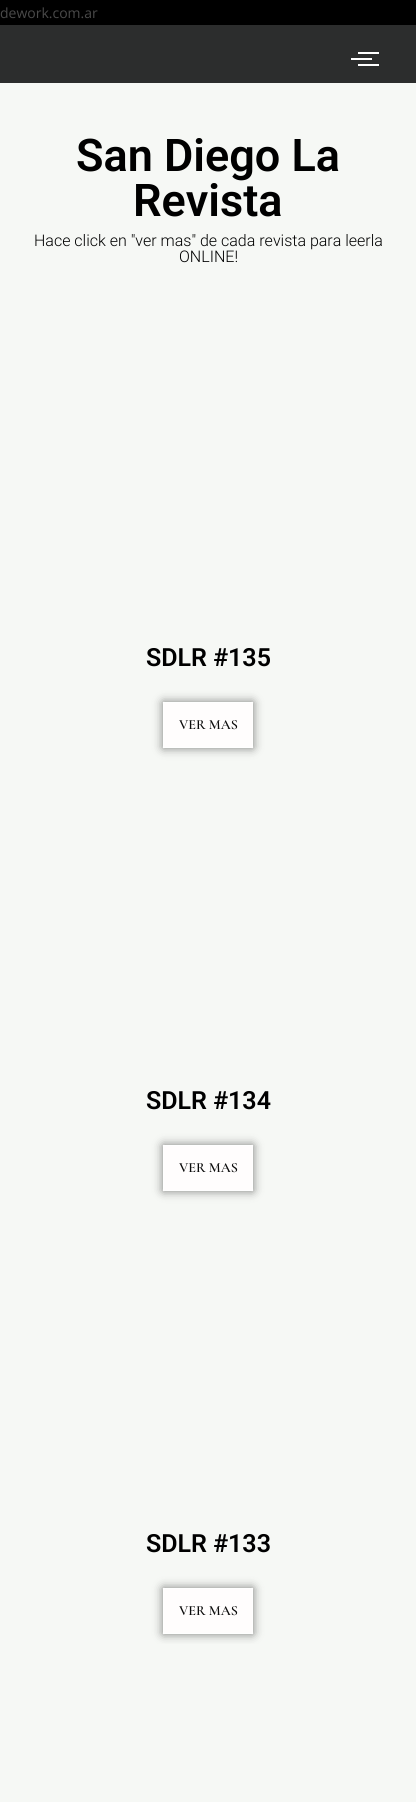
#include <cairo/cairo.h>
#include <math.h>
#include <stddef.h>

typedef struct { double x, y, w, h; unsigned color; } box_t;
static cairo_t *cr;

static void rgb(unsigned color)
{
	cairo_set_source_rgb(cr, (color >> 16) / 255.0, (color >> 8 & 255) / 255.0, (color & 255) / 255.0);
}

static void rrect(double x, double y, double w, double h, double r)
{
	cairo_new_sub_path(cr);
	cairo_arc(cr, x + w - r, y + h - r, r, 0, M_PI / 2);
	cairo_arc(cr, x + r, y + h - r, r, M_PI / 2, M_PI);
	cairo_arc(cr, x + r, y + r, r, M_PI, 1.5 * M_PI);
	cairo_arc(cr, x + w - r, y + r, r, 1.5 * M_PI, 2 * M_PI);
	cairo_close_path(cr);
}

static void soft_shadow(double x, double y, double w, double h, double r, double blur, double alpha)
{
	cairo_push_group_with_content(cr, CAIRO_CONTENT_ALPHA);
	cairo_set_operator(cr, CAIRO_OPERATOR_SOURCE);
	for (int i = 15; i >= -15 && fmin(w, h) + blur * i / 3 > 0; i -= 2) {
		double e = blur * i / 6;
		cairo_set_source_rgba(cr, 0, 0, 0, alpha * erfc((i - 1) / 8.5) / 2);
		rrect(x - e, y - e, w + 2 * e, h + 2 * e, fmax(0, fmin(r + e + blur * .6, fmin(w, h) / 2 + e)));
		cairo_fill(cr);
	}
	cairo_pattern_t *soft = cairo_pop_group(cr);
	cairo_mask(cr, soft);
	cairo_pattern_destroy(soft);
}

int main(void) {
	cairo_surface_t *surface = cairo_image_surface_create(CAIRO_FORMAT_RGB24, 416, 1802);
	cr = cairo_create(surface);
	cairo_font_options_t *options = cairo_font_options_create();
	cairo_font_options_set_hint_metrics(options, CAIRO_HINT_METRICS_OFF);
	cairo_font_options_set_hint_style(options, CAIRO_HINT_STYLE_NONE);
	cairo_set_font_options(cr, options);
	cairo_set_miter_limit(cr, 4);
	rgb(0x000000);
	cairo_paint(cr);
	{
		static const box_t items[] = {
			{0, 25, 416, 58, 0x2c2d2d},
			{358, 52, 21, 2, 0xffffff},
			{351, 58, 21, 2, 0xffffff},
			{358, 64, 21, 2, 0xffffff},
			{0, 83, 416, 1561, 0xf6f8f5},
		};
		for (size_t i = 0; i < sizeof items / sizeof *items; i++) {
			rgb(items[i].color);
			cairo_rectangle(cr, items[i].x, items[i].y, items[i].w, items[i].h);
			cairo_fill(cr);
		}
	}
	rgb(0x000000);
	soft_shadow(163, 702, 90, 46, 0, 5, 0.5);
	rgb(0xfffdfd);
	cairo_rectangle(cr, 163.5, 702.5, 89, 45);
	cairo_fill_preserve(cr);
	rgb(0xffffff);
	cairo_set_line_width(cr, 1);
	cairo_stroke(cr);
	rgb(0x000000);
	soft_shadow(163, 1145, 90, 46, 0, 5, 0.5);
	rgb(0xfffdfd);
	cairo_rectangle(cr, 163.5, 1145.5, 89, 45);
	cairo_fill_preserve(cr);
	rgb(0xffffff);
	cairo_stroke(cr);
	rgb(0x000000);
	soft_shadow(163, 1588, 90, 46, 0, 5, 0.5);
	rgb(0xfffdfd);
	cairo_rectangle(cr, 163.5, 1588.5, 89, 45);
	cairo_fill_preserve(cr);
	rgb(0xffffff);
	cairo_stroke(cr);
	rgb(0xf6f8f5);
	cairo_rectangle(cr, 0, 1644, 416, 158);
	cairo_fill(cr);
	cairo_select_font_face(cr, "Open Sans", CAIRO_FONT_SLANT_NORMAL, CAIRO_FONT_WEIGHT_NORMAL);
	cairo_set_font_size(cr, 14);
	rgb(0x4a4a4a);
	cairo_move_to(cr, 0, 18);
	cairo_show_text(cr, "dework.com.ar");
	cairo_select_font_face(cr, "Roboto SemiBold", CAIRO_FONT_SLANT_NORMAL, CAIRO_FONT_WEIGHT_NORMAL);
	cairo_set_font_size(cr, 45);
	rgb(0x000000);
	cairo_move_to(cr, 76, 171);
	cairo_show_text(cr, "San Diego La");
	cairo_move_to(cr, 133, 216);
	cairo_show_text(cr, "Revista");
	cairo_select_font_face(cr, "Roboto Light", CAIRO_FONT_SLANT_NORMAL, CAIRO_FONT_WEIGHT_NORMAL);
	cairo_set_font_size(cr, 16);
	cairo_move_to(cr, 34, 246);
	cairo_show_text(cr, "Hace click en \"ver mas\" de cada revista para leerla");
	cairo_move_to(cr, 179, 262);
	cairo_show_text(cr, "ONLINE!");
	cairo_select_font_face(cr, "Roboto SemiBold", CAIRO_FONT_SLANT_NORMAL, CAIRO_FONT_WEIGHT_NORMAL);
	cairo_set_font_size(cr, 25);
	cairo_move_to(cr, 146, 666);
	cairo_show_text(cr, "SDLR #135");
	cairo_select_font_face(cr, "Cormorant Garamond SemiBold", CAIRO_FONT_SLANT_NORMAL, CAIRO_FONT_WEIGHT_NORMAL);
	cairo_set_font_size(cr, 14);
	rgb(0x0a0a0a);
	cairo_move_to(cr, 179, 729);
	cairo_show_text(cr, "VER MAS");
	cairo_select_font_face(cr, "Roboto SemiBold", CAIRO_FONT_SLANT_NORMAL, CAIRO_FONT_WEIGHT_NORMAL);
	cairo_set_font_size(cr, 25);
	rgb(0x000000);
	cairo_move_to(cr, 146, 1109);
	cairo_show_text(cr, "SDLR #134");
	cairo_select_font_face(cr, "Cormorant Garamond SemiBold", CAIRO_FONT_SLANT_NORMAL, CAIRO_FONT_WEIGHT_NORMAL);
	cairo_set_font_size(cr, 14);
	rgb(0x0a0a0a);
	cairo_move_to(cr, 179, 1172);
	cairo_show_text(cr, "VER MAS");
	cairo_select_font_face(cr, "Roboto SemiBold", CAIRO_FONT_SLANT_NORMAL, CAIRO_FONT_WEIGHT_NORMAL);
	cairo_set_font_size(cr, 25);
	rgb(0x000000);
	cairo_move_to(cr, 146, 1552);
	cairo_show_text(cr, "SDLR #133");
	cairo_select_font_face(cr, "Cormorant Garamond SemiBold", CAIRO_FONT_SLANT_NORMAL, CAIRO_FONT_WEIGHT_NORMAL);
	cairo_set_font_size(cr, 14);
	rgb(0x0a0a0a);
	cairo_move_to(cr, 179, 1615);
	cairo_show_text(cr, "VER MAS");
	cairo_surface_write_to_png(surface, "page.png");
	cairo_font_options_destroy(options);
	cairo_destroy(cr);
	cairo_surface_destroy(surface);
	return 0;
}
